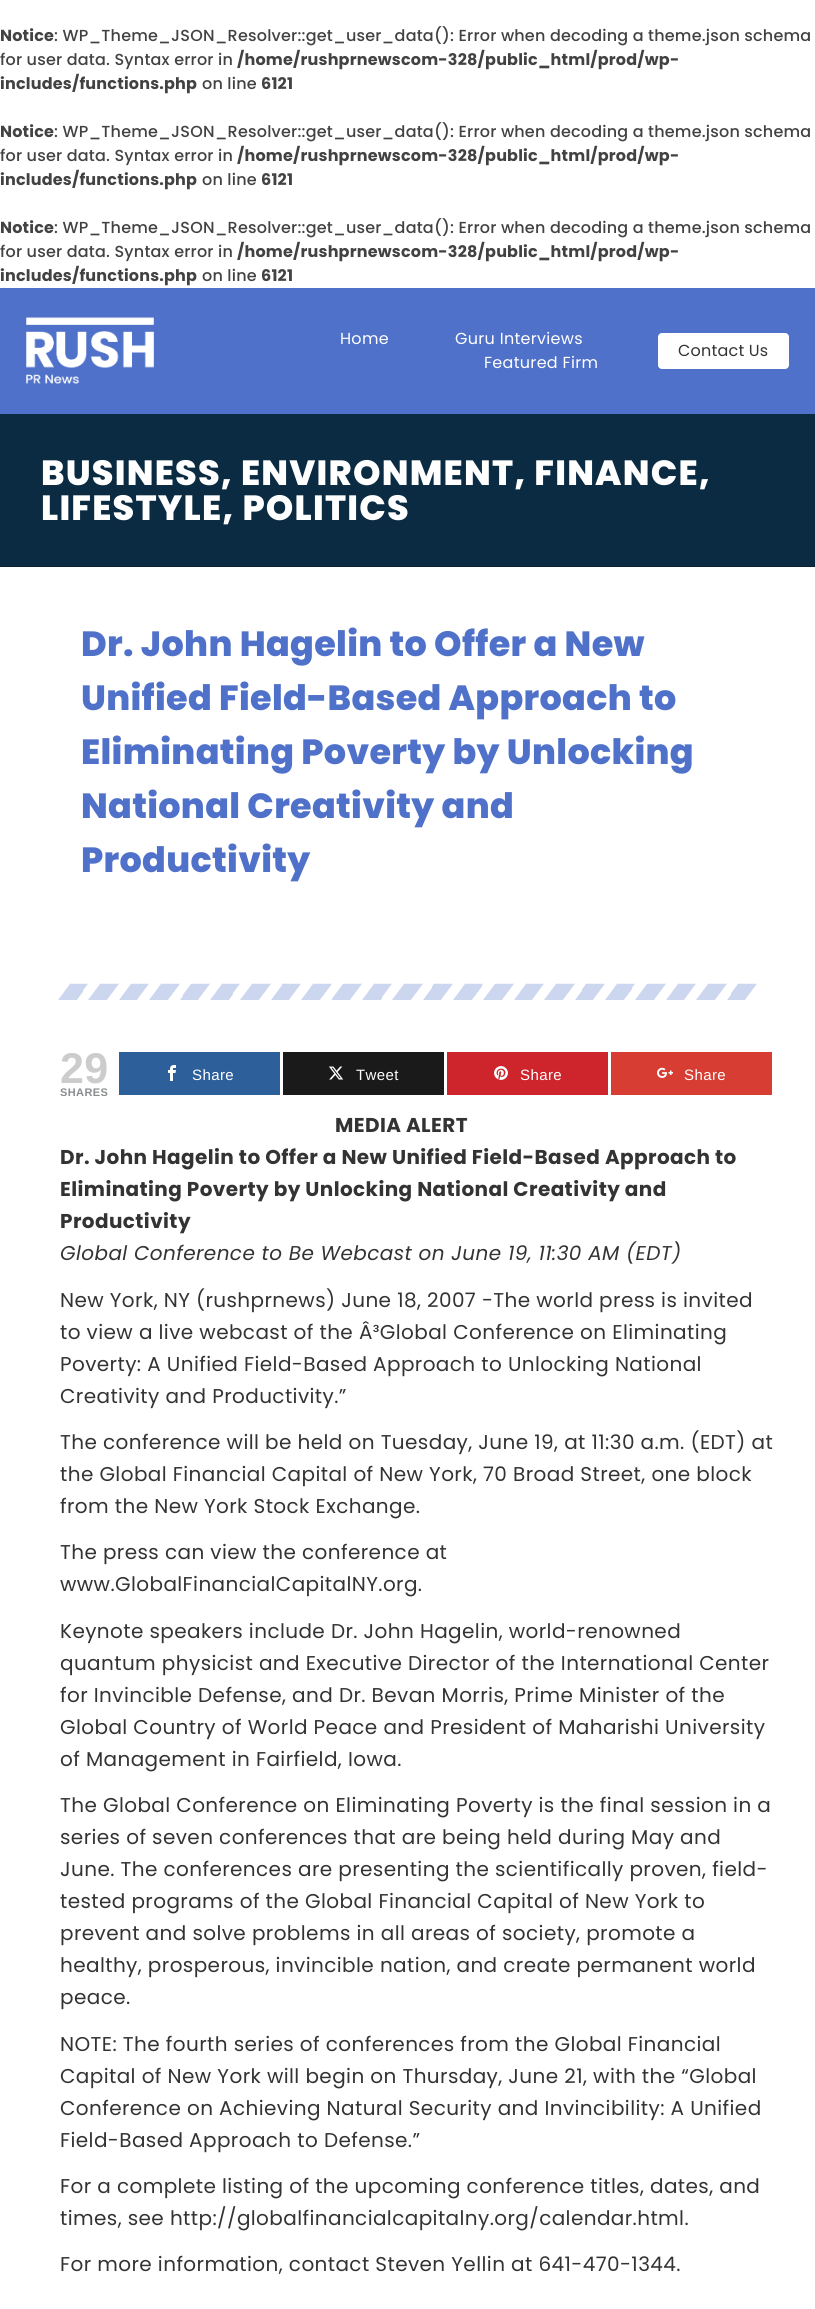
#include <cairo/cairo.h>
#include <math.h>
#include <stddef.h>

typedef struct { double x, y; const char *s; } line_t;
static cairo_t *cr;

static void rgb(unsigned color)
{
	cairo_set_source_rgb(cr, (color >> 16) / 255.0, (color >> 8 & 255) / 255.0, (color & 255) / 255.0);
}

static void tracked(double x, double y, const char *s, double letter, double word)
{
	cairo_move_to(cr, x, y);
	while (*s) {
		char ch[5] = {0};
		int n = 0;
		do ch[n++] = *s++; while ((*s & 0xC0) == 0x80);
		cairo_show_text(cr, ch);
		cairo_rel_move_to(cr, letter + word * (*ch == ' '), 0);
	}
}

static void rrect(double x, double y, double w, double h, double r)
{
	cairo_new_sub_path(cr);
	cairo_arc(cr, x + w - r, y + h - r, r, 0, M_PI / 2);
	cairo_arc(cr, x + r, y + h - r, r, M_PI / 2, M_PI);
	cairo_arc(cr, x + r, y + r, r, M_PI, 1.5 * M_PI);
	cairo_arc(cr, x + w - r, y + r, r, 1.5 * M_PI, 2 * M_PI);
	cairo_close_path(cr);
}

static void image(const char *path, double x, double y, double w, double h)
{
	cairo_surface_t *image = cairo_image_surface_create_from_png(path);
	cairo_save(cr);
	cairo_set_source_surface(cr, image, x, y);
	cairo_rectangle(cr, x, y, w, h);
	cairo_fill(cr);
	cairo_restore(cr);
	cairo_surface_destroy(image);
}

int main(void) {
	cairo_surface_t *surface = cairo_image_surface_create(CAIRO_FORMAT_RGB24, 815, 2309);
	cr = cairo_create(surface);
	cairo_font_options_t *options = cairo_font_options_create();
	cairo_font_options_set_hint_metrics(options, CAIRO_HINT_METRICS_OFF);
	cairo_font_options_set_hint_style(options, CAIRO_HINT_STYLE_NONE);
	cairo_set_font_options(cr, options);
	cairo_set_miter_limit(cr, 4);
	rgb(0xffffff);
	cairo_paint(cr);
	rgb(0x4f71c9);
	cairo_rectangle(cr, 0, 288, 815, 126);
	cairo_fill(cr);
	image("img/1.png", 26, 317, 128, 67);
	rgb(0xffffff);
	rrect(658, 333, 131, 36, 4);
	cairo_fill(cr);
	rgb(0x0b2b42);
	cairo_rectangle(cr, 0, 414, 815, 152);
	cairo_fill(cr);
	rgb(0x092234);
	cairo_rectangle(cr, 0, 566, 815, 1);
	cairo_fill(cr);
	image("img/2.png", 58, 983, 699, 17);
	rgb(0x2d5f9a);
	cairo_rectangle(cr, 119, 1052, 161, 43);
	cairo_fill(cr);
	image("img/3.png", 168, 1065, 8, 16);
	rgb(0x1a1a1a);
	cairo_rectangle(cr, 283, 1052, 161, 43);
	cairo_fill(cr);
	image("img/4.png", 329, 1066, 15, 14);
	rgb(0xcd252b);
	cairo_rectangle(cr, 447, 1052, 161, 43);
	cairo_fill(cr);
	image("img/5.png", 494, 1066, 14, 14);
	rgb(0xd73d32);
	cairo_rectangle(cr, 611, 1052, 161, 43);
	cairo_fill(cr);
	image("img/6.png", 657, 1067, 16, 11);
	cairo_select_font_face(cr, "Poppins", CAIRO_FONT_SLANT_NORMAL, CAIRO_FONT_WEIGHT_BOLD);
	cairo_set_font_size(cr, 16);
	rgb(0x424242);
	tracked(0, 41, "Notice", 0.2, 0);
	cairo_select_font_face(cr, "Poppins Medium", CAIRO_FONT_SLANT_NORMAL, CAIRO_FONT_WEIGHT_NORMAL);
	tracked(54, 41, ": WP_Theme_JSON_Resolver::get_user_data(): Error when decoding a theme.json schema", 0.2, 0);
	tracked(0, 65, "for user data. Syntax error in", 0.2, 0);
	cairo_select_font_face(cr, "Poppins", CAIRO_FONT_SLANT_NORMAL, CAIRO_FONT_WEIGHT_BOLD);
	tracked(237, 65, "/home/rushprnewscom-328/public_html/prod/wp-", 0.2, 0);
	tracked(0, 89, "includes/functions.php", 0.2, 0);
	cairo_select_font_face(cr, "Poppins Medium", CAIRO_FONT_SLANT_NORMAL, CAIRO_FONT_WEIGHT_NORMAL);
	tracked(202, 89, "on line", 0.2, 0);
	cairo_select_font_face(cr, "Poppins", CAIRO_FONT_SLANT_NORMAL, CAIRO_FONT_WEIGHT_BOLD);
	tracked(261, 89, "6121", 0.2, 0);
	tracked(0, 137, "Notice", 0.2, 0);
	cairo_select_font_face(cr, "Poppins Medium", CAIRO_FONT_SLANT_NORMAL, CAIRO_FONT_WEIGHT_NORMAL);
	tracked(54, 137, ": WP_Theme_JSON_Resolver::get_user_data(): Error when decoding a theme.json schema", 0.2, 0);
	tracked(0, 161, "for user data. Syntax error in", 0.2, 0);
	cairo_select_font_face(cr, "Poppins", CAIRO_FONT_SLANT_NORMAL, CAIRO_FONT_WEIGHT_BOLD);
	tracked(237, 161, "/home/rushprnewscom-328/public_html/prod/wp-", 0.2, 0);
	tracked(0, 185, "includes/functions.php", 0.2, 0);
	cairo_select_font_face(cr, "Poppins Medium", CAIRO_FONT_SLANT_NORMAL, CAIRO_FONT_WEIGHT_NORMAL);
	tracked(202, 185, "on line", 0.2, 0);
	cairo_select_font_face(cr, "Poppins", CAIRO_FONT_SLANT_NORMAL, CAIRO_FONT_WEIGHT_BOLD);
	tracked(261, 185, "6121", 0.2, 0);
	tracked(0, 233, "Notice", 0.2, 0);
	cairo_select_font_face(cr, "Poppins Medium", CAIRO_FONT_SLANT_NORMAL, CAIRO_FONT_WEIGHT_NORMAL);
	tracked(54, 233, ": WP_Theme_JSON_Resolver::get_user_data(): Error when decoding a theme.json schema", 0.2, 0);
	tracked(0, 257, "for user data. Syntax error in", 0.2, 0);
	cairo_select_font_face(cr, "Poppins", CAIRO_FONT_SLANT_NORMAL, CAIRO_FONT_WEIGHT_BOLD);
	tracked(237, 257, "/home/rushprnewscom-328/public_html/prod/wp-", 0.2, 0);
	tracked(0, 281, "includes/functions.php", 0.2, 0);
	cairo_select_font_face(cr, "Poppins Medium", CAIRO_FONT_SLANT_NORMAL, CAIRO_FONT_WEIGHT_NORMAL);
	tracked(202, 281, "on line", 0.2, 0);
	cairo_select_font_face(cr, "Poppins", CAIRO_FONT_SLANT_NORMAL, CAIRO_FONT_WEIGHT_BOLD);
	tracked(261, 281, "6121", 0.2, 0);
	cairo_select_font_face(cr, "Poppins", CAIRO_FONT_SLANT_NORMAL, CAIRO_FONT_WEIGHT_NORMAL);
	rgb(0xffffff);
	{
		static const line_t items[] = {
			{340, 344, "Home"},
			{455, 344, "Guru Interviews"},
			{484, 368, "Featured Firm"},
		};
		for (size_t i = 0; i < sizeof items / sizeof *items; i++) {
			tracked(items[i].x, items[i].y, items[i].s, 0.3, 0);
		}
	}
	rgb(0x333333);
	tracked(678, 356, "Contact Us", 0.2, 0);
	cairo_select_font_face(cr, "Poppins ExtraBold", CAIRO_FONT_SLANT_NORMAL, CAIRO_FONT_WEIGHT_NORMAL);
	cairo_set_font_size(cr, 35);
	rgb(0xffffff);
	tracked(41, 485, "BUSINESS, ENVIRONMENT, FINANCE,", 1.2, 0);
	tracked(41, 520, "LIFESTYLE, POLITICS", 1.2, 0);
	rgb(0x4f71c9);
	{
		static const line_t items[] = {
			{81, 656, "Dr. John Hagelin to Offer a New"},
			{81, 710, "Unified Field-Based Approach to"},
			{81, 764, "Eliminating Poverty by Unlocking"},
			{81, 818, "National Creativity and"},
			{81, 872, "Productivity"},
		};
		for (size_t i = 0; i < sizeof items / sizeof *items; i++) {
			tracked(items[i].x, items[i].y, items[i].s, 0.3, 0);
		}
	}
	cairo_select_font_face(cr, "Liberation Sans", CAIRO_FONT_SLANT_NORMAL, CAIRO_FONT_WEIGHT_BOLD);
	cairo_set_font_size(cr, 43);
	rgb(0xcccccc);
	tracked(60, 1083, "29", 0.4, 0);
	cairo_set_font_size(cr, 11);
	rgb(0x8a8c8e);
	tracked(60, 1096, "SHARES", 0.4, 0);
	cairo_select_font_face(cr, "Liberation Sans", CAIRO_FONT_SLANT_NORMAL, CAIRO_FONT_WEIGHT_NORMAL);
	cairo_set_font_size(cr, 15);
	rgb(0xffffff);
	{
		static const line_t items[] = {
			{192, 1080, "Share"},
			{356, 1080, "Tweet"},
			{520, 1080, "Share"},
			{684, 1080, "Share"},
		};
		for (size_t i = 0; i < sizeof items / sizeof *items; i++) {
			tracked(items[i].x, items[i].y, items[i].s, 0.4, 0);
		}
	}
	cairo_select_font_face(cr, "Poppins", CAIRO_FONT_SLANT_NORMAL, CAIRO_FONT_WEIGHT_BOLD);
	cairo_set_font_size(cr, 20);
	rgb(0x333333);
	{
		static const line_t items[] = {
			{335, 1132, "MEDIA ALERT"},
			{60, 1164, "Dr. John Hagelin to Offer a New Unified Field-Based Approach to"},
			{60, 1196, "Eliminating Poverty by Unlocking National Creativity and"},
			{60, 1228, "Productivity"},
		};
		for (size_t i = 0; i < sizeof items / sizeof *items; i++) {
			tracked(items[i].x, items[i].y, items[i].s, 0.4, 0);
		}
	}
	cairo_select_font_face(cr, "Poppins", CAIRO_FONT_SLANT_ITALIC, CAIRO_FONT_WEIGHT_NORMAL);
	tracked(60, 1260, "Global Conference to Be Webcast on June 19, 11:30 AM (EDT)", 0.4, 0);
	cairo_select_font_face(cr, "Poppins", CAIRO_FONT_SLANT_NORMAL, CAIRO_FONT_WEIGHT_NORMAL);
	{
		static const line_t items[] = {
			{60, 1307, "New York, NY (rushprnews) June 18, 2007 -The world press is invited"},
			{60, 1339, "to view a live webcast of the Â³Global Conference on Eliminating"},
			{60, 1371, "Poverty: A Unified Field-Based Approach to Unlocking National"},
			{60, 1403, "Creativity and Productivity.”"},
			{60, 1449, "The conference will be held on Tuesday, June 19, at 11:30 a.m. (EDT) at"},
			{60, 1481, "the Global Financial Capital of New York, 70 Broad Street, one block"},
			{60, 1513, "from the New York Stock Exchange."},
			{60, 1559, "The press can view the conference at"},
			{60, 1591, "www.GlobalFinancialCapitalNY.org."},
			{60, 1638, "Keynote speakers include Dr. John Hagelin, world-renowned"},
			{60, 1670, "quantum physicist and Executive Director of the International Center"},
			{60, 1702, "for Invincible Defense, and Dr. Bevan Morris, Prime Minister of the"},
			{60, 1734, "Global Country of World Peace and President of Maharishi University"},
			{60, 1766, "of Management in Fairfield, Iowa."},
			{60, 1812, "The Global Conference on Eliminating Poverty is the final session in a"},
			{60, 1844, "series of seven conferences that are being held during May and"},
			{60, 1876, "June. The conferences are presenting the scientifically proven, field-"},
			{60, 1908, "tested programs of the Global Financial Capital of New York to"},
			{60, 1940, "prevent and solve problems in all areas of society, promote a"},
			{60, 1972, "healthy, prosperous, invincible nation, and create permanent world"},
			{60, 2004, "peace."},
			{60, 2051, "NOTE: The fourth series of conferences from the Global Financial"},
			{60, 2083, "Capital of New York will begin on Thursday, June 21, with the “Global"},
			{60, 2115, "Conference on Achieving Natural Security and Invincibility: A Unified"},
			{60, 2147, "Field-Based Approach to Defense.”"},
			{60, 2193, "For a complete listing of the upcoming conference titles, dates, and"},
			{60, 2225, "times, see http://globalfinancialcapitalny.org/calendar.html."},
			{60, 2271, "For more information, contact Steven Yellin at 641-470-1344."},
		};
		for (size_t i = 0; i < sizeof items / sizeof *items; i++) {
			tracked(items[i].x, items[i].y, items[i].s, 0.4, 0);
		}
	}
	cairo_surface_write_to_png(surface, "page.png");
	cairo_font_options_destroy(options);
	cairo_destroy(cr);
	cairo_surface_destroy(surface);
	return 0;
}
